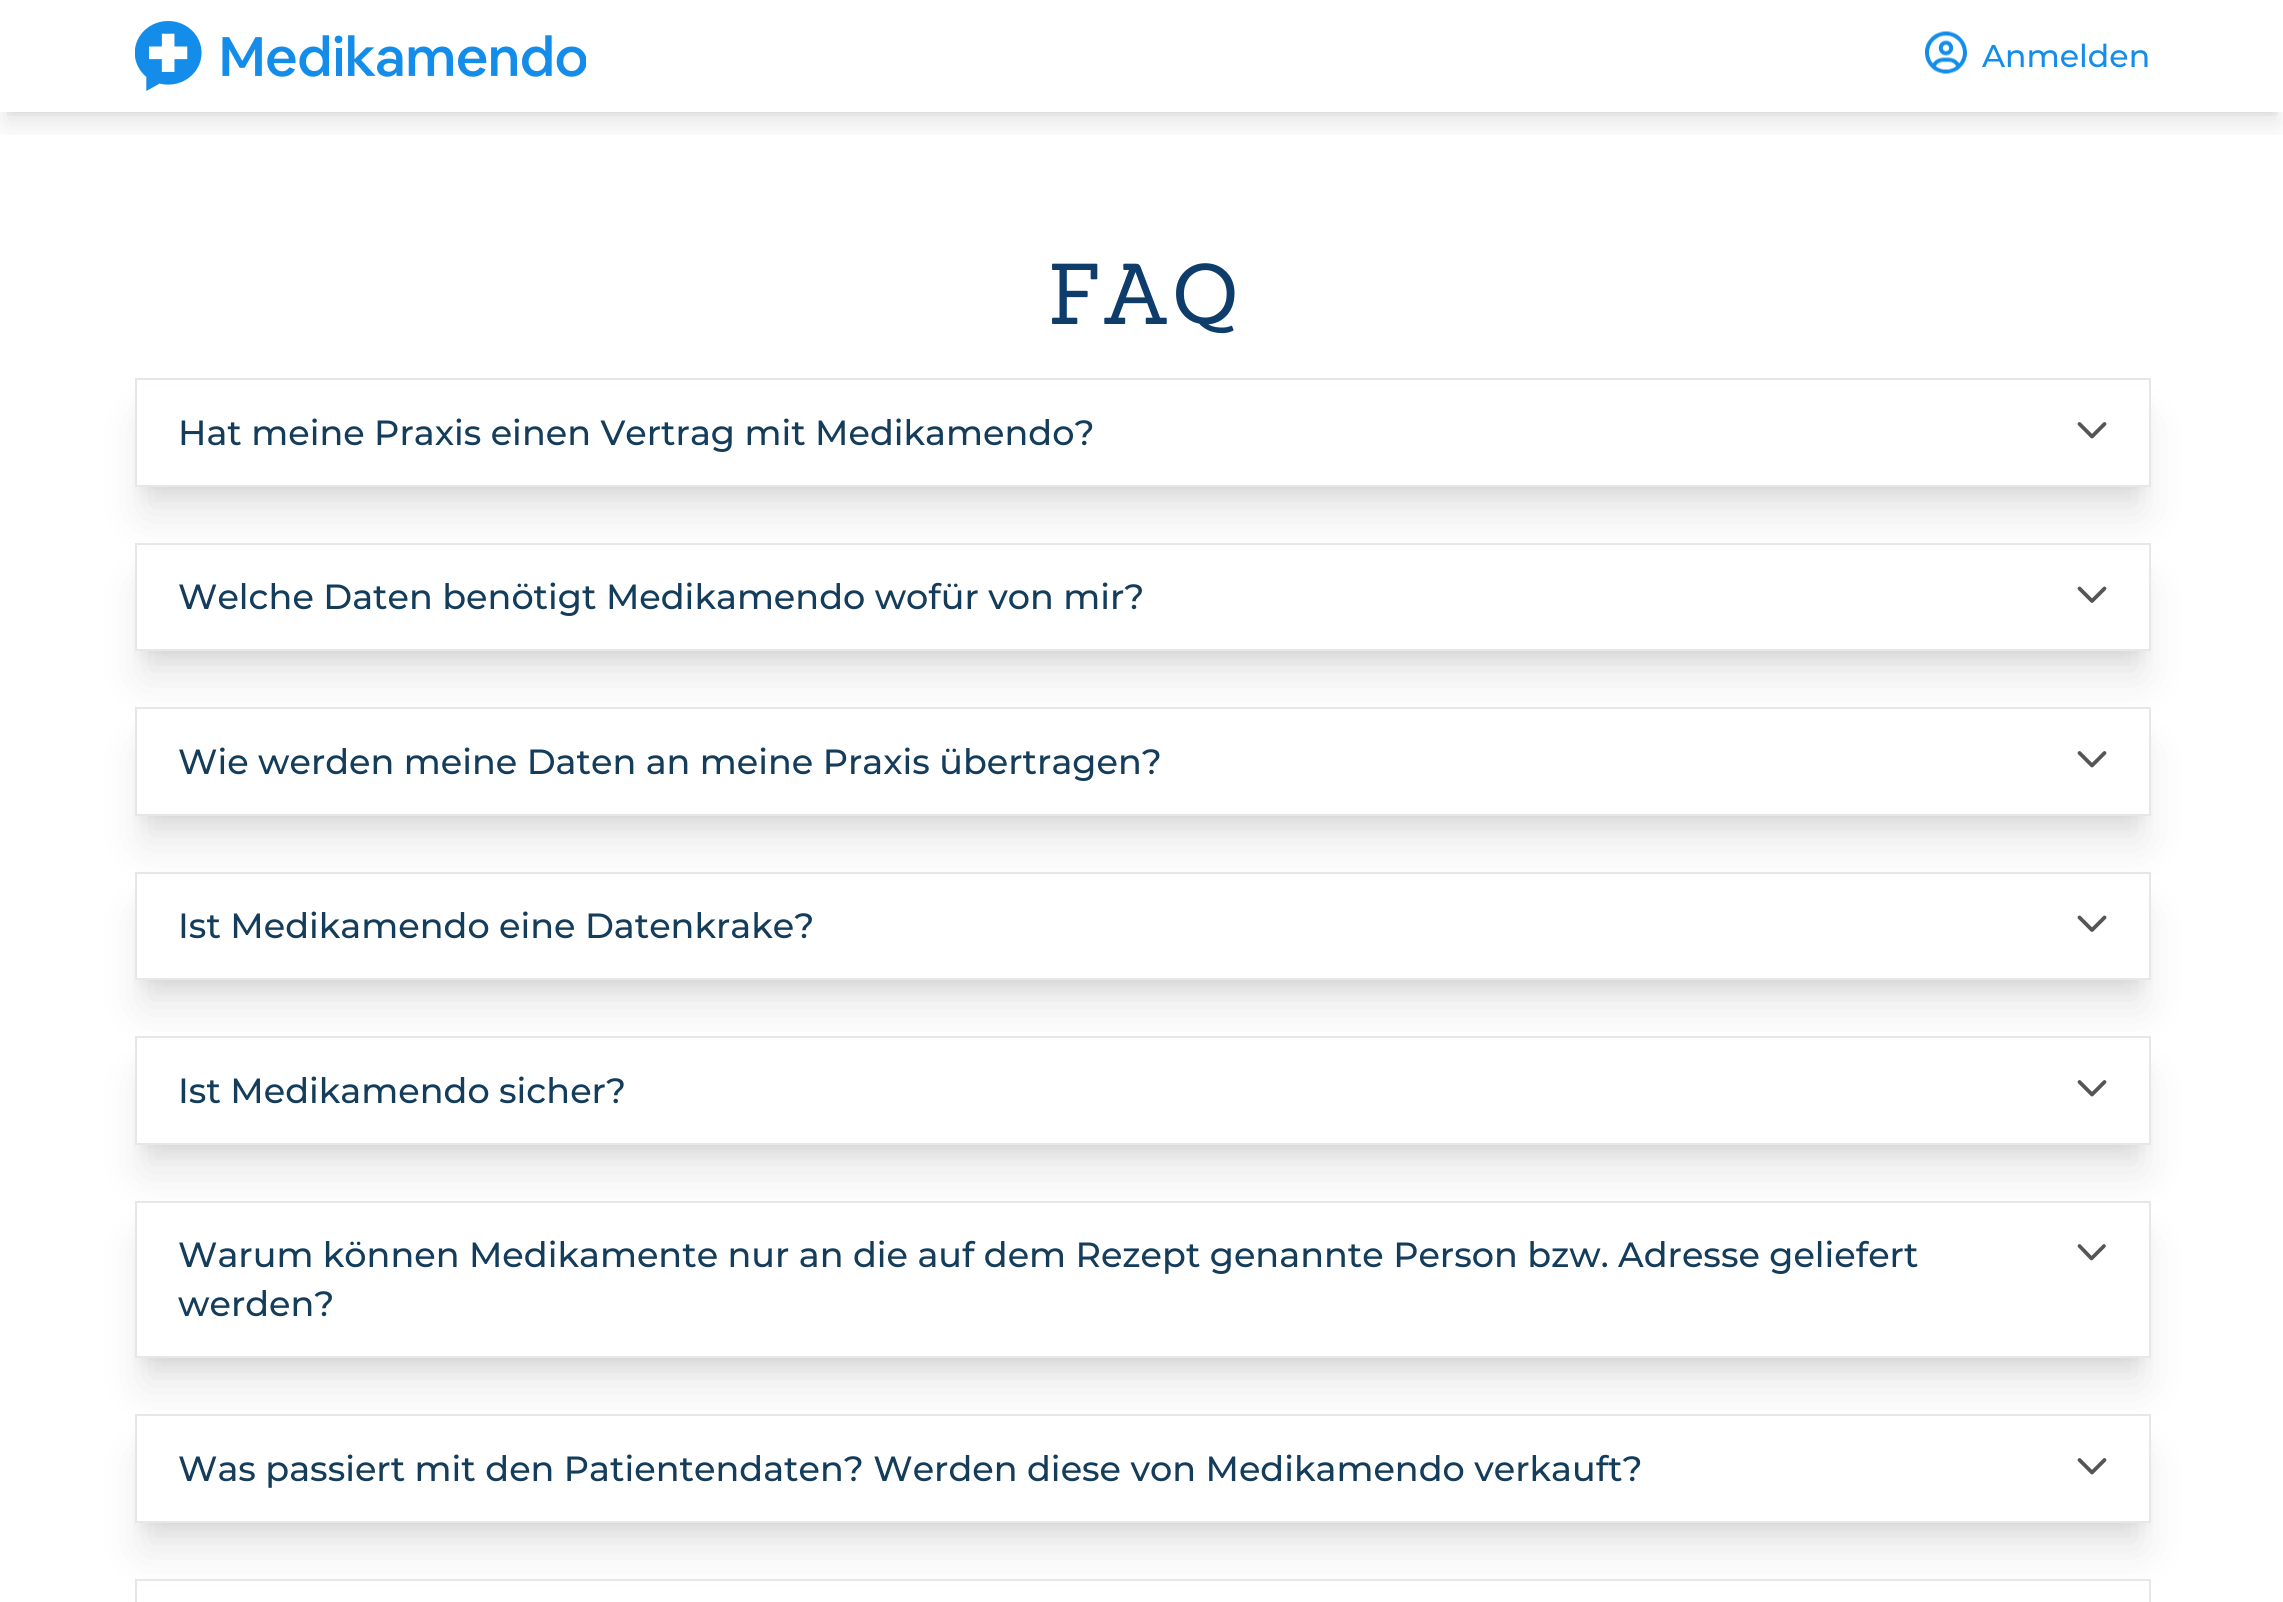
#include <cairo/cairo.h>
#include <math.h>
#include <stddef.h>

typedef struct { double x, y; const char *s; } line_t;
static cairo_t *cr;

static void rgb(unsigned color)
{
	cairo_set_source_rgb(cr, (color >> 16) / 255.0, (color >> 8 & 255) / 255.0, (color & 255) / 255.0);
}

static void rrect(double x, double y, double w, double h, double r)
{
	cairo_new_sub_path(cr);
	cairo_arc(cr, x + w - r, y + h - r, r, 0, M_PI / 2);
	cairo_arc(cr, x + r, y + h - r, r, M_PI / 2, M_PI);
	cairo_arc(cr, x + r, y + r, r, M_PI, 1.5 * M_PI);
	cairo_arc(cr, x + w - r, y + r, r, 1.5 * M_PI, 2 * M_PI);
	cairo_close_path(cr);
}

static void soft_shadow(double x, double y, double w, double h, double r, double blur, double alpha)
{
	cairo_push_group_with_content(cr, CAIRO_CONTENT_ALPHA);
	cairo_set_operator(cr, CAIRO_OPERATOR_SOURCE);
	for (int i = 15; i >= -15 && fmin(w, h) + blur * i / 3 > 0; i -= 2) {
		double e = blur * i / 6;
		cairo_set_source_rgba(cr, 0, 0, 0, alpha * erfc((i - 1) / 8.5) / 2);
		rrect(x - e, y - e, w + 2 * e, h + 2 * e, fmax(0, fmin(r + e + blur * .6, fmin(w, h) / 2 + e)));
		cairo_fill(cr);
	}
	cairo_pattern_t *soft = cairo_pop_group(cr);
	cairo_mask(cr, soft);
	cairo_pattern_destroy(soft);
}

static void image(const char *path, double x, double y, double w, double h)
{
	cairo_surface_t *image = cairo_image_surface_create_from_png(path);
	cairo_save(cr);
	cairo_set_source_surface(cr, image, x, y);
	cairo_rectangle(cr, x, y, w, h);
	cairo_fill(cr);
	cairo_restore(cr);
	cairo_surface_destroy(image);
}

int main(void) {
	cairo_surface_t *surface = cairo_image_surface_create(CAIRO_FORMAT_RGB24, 2283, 1602);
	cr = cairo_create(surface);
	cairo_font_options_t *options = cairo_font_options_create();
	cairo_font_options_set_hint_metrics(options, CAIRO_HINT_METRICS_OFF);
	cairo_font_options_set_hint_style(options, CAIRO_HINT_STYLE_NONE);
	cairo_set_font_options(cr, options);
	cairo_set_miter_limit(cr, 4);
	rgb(0xffffff);
	cairo_paint(cr);
	cairo_save(cr);
	cairo_rectangle(cr, 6, 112, 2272, 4);
	cairo_clip(cr);
	rgb(0x000000);
	soft_shadow(7, 14, 2270, 98, 0, 5, 0.1);
	cairo_restore(cr);
	cairo_save(cr);
	cairo_rectangle(cr, 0, 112, 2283, 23);
	cairo_clip(cr);
	rgb(0x000000);
	soft_shadow(5, 23, 2274, 101, 0, 13, 0.1);
	cairo_restore(cr);
	image("img/1.png", 135, 21, 451, 70);
	image("img/2.png", 1925, 31, 42, 43);
	rgb(0x000000);
	soft_shadow(145, 403, 1995, 87, 0, 9, 0.1);
	soft_shadow(144, 422, 1998, 91, 0, 22, 0.1);
	rgb(0xffffff);
	cairo_rectangle(cr, 137, 387, 2012, 98);
	cairo_fill(cr);
	cairo_rectangle(cr, 136, 379, 2014, 107);
	rgb(0xe5e7eb);
	cairo_stroke(cr);
	cairo_new_path(cr);
	cairo_move_to(cr, 2104.5, 424);
	cairo_line_to(cr, 2092, 436.5);
	cairo_line_to(cr, 2079.5, 424);
	rgb(0x555555);
	cairo_set_line_width(cr, 3.8);
	cairo_set_line_cap(cr, CAIRO_LINE_CAP_ROUND);
	cairo_set_line_join(cr, CAIRO_LINE_JOIN_ROUND);
	cairo_stroke(cr);
	rgb(0x000000);
	soft_shadow(145, 567, 1995, 88, 0, 9, 0.1);
	soft_shadow(144, 586, 1998, 91, 0, 22, 0.1);
	rgb(0xffffff);
	cairo_rectangle(cr, 136, 544, 2014, 106);
	cairo_fill_preserve(cr);
	rgb(0xe5e7eb);
	cairo_set_line_width(cr, 2);
	cairo_set_line_cap(cr, CAIRO_LINE_CAP_BUTT);
	cairo_set_line_join(cr, CAIRO_LINE_JOIN_MITER);
	cairo_stroke(cr);
	cairo_new_path(cr);
	cairo_move_to(cr, 2104.5, 588.5);
	cairo_line_to(cr, 2092, 601);
	cairo_line_to(cr, 2079.5, 588.5);
	rgb(0x555555);
	cairo_set_line_width(cr, 3.8);
	cairo_set_line_cap(cr, CAIRO_LINE_CAP_ROUND);
	cairo_set_line_join(cr, CAIRO_LINE_JOIN_ROUND);
	cairo_stroke(cr);
	rgb(0x000000);
	soft_shadow(145, 732, 1995, 87, 0, 9, 0.1);
	soft_shadow(144, 751, 1998, 91, 0, 22, 0.1);
	rgb(0xffffff);
	cairo_rectangle(cr, 136, 708, 2014, 107);
	cairo_fill_preserve(cr);
	rgb(0xe5e7eb);
	cairo_set_line_width(cr, 2);
	cairo_set_line_cap(cr, CAIRO_LINE_CAP_BUTT);
	cairo_set_line_join(cr, CAIRO_LINE_JOIN_MITER);
	cairo_stroke(cr);
	cairo_new_path(cr);
	cairo_move_to(cr, 2104.5, 753);
	cairo_line_to(cr, 2092, 765.5);
	cairo_line_to(cr, 2079.5, 753);
	rgb(0x555555);
	cairo_set_line_width(cr, 3.8);
	cairo_set_line_cap(cr, CAIRO_LINE_CAP_ROUND);
	cairo_set_line_join(cr, CAIRO_LINE_JOIN_ROUND);
	cairo_stroke(cr);
	rgb(0x000000);
	soft_shadow(145, 896, 1995, 88, 0, 9, 0.1);
	soft_shadow(144, 915, 1998, 91, 0, 22, 0.1);
	rgb(0xffffff);
	cairo_rectangle(cr, 136, 873, 2014, 106);
	cairo_fill_preserve(cr);
	rgb(0xe5e7eb);
	cairo_set_line_width(cr, 2);
	cairo_set_line_cap(cr, CAIRO_LINE_CAP_BUTT);
	cairo_set_line_join(cr, CAIRO_LINE_JOIN_MITER);
	cairo_stroke(cr);
	cairo_new_path(cr);
	cairo_move_to(cr, 2104.5, 917.5);
	cairo_line_to(cr, 2092, 930);
	cairo_line_to(cr, 2079.5, 917.5);
	rgb(0x555555);
	cairo_set_line_width(cr, 3.8);
	cairo_set_line_cap(cr, CAIRO_LINE_CAP_ROUND);
	cairo_set_line_join(cr, CAIRO_LINE_JOIN_ROUND);
	cairo_stroke(cr);
	rgb(0x000000);
	soft_shadow(145, 1061, 1995, 87, 0, 9, 0.1);
	soft_shadow(144, 1080, 1998, 91, 0, 22, 0.1);
	rgb(0xffffff);
	cairo_rectangle(cr, 136, 1037, 2014, 107);
	cairo_fill_preserve(cr);
	rgb(0xe5e7eb);
	cairo_set_line_width(cr, 2);
	cairo_set_line_cap(cr, CAIRO_LINE_CAP_BUTT);
	cairo_set_line_join(cr, CAIRO_LINE_JOIN_MITER);
	cairo_stroke(cr);
	cairo_new_path(cr);
	cairo_move_to(cr, 2104.5, 1082);
	cairo_line_to(cr, 2092, 1094.5);
	cairo_line_to(cr, 2079.5, 1082);
	rgb(0x555555);
	cairo_set_line_width(cr, 3.8);
	cairo_set_line_cap(cr, CAIRO_LINE_CAP_ROUND);
	cairo_set_line_join(cr, CAIRO_LINE_JOIN_ROUND);
	cairo_stroke(cr);
	rgb(0x000000);
	soft_shadow(145, 1225, 1995, 137, 0, 9, 0.1);
	soft_shadow(144, 1244, 1998, 140, 0, 22, 0.1);
	rgb(0xffffff);
	cairo_rectangle(cr, 136, 1202, 2014, 155);
	cairo_fill_preserve(cr);
	rgb(0xe5e7eb);
	cairo_set_line_width(cr, 2);
	cairo_set_line_cap(cr, CAIRO_LINE_CAP_BUTT);
	cairo_set_line_join(cr, CAIRO_LINE_JOIN_MITER);
	cairo_stroke(cr);
	cairo_new_path(cr);
	cairo_move_to(cr, 2104, 1246);
	cairo_line_to(cr, 2091.5, 1258.5);
	cairo_line_to(cr, 2079.5, 1246);
	rgb(0x555555);
	cairo_set_line_width(cr, 3.7);
	cairo_set_line_cap(cr, CAIRO_LINE_CAP_ROUND);
	cairo_set_line_join(cr, CAIRO_LINE_JOIN_ROUND);
	cairo_stroke(cr);
	rgb(0x000000);
	soft_shadow(145, 1439, 1995, 87, 0, 9, 0.1);
	soft_shadow(144, 1458, 1998, 91, 0, 22, 0.1);
	rgb(0xffffff);
	cairo_rectangle(cr, 136, 1415, 2014, 107);
	cairo_fill_preserve(cr);
	rgb(0xe5e7eb);
	cairo_set_line_width(cr, 2);
	cairo_set_line_cap(cr, CAIRO_LINE_CAP_BUTT);
	cairo_set_line_join(cr, CAIRO_LINE_JOIN_MITER);
	cairo_stroke(cr);
	cairo_new_path(cr);
	cairo_move_to(cr, 2104.5, 1460);
	cairo_line_to(cr, 2092, 1472.5);
	cairo_line_to(cr, 2079.5, 1460);
	rgb(0x555555);
	cairo_set_line_width(cr, 3.8);
	cairo_set_line_cap(cr, CAIRO_LINE_CAP_ROUND);
	cairo_set_line_join(cr, CAIRO_LINE_JOIN_ROUND);
	cairo_stroke(cr);
	cairo_rectangle(cr, 136, 1580, 2014, 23);
	rgb(0xe5e7eb);
	cairo_set_line_width(cr, 2);
	cairo_set_line_cap(cr, CAIRO_LINE_CAP_BUTT);
	cairo_set_line_join(cr, CAIRO_LINE_JOIN_MITER);
	cairo_stroke(cr);
	cairo_select_font_face(cr, "Montserrat Medium", CAIRO_FONT_SLANT_NORMAL, CAIRO_FONT_WEIGHT_NORMAL);
	cairo_set_font_size(cr, 31.5);
	rgb(0x148dea);
	cairo_move_to(cr, 1982, 67);
	cairo_show_text(cr, "Anmelden");
	cairo_select_font_face(cr, "Sanchez", CAIRO_FONT_SLANT_NORMAL, CAIRO_FONT_WEIGHT_NORMAL);
	cairo_set_font_size(cr, 84);
	rgb(0x0e3d6c);
	cairo_move_to(cr, 1048, 324);
	cairo_show_text(cr, "FAQ");
	cairo_select_font_face(cr, "Montserrat Medium", CAIRO_FONT_SLANT_NORMAL, CAIRO_FONT_WEIGHT_NORMAL);
	cairo_set_font_size(cr, 35);
	rgb(0x143c5b);
	{
		static const line_t items[] = {
			{178, 445, "Hat meine Praxis einen Vertrag mit Medikamendo?"},
			{178, 609, "Welche Daten benötigt Medikamendo wofür von mir?"},
			{178, 774, "Wie werden meine Daten an meine Praxis übertragen?"},
			{178, 938, "Ist Medikamendo eine Datenkrake?"},
			{178, 1103, "Ist Medikamendo sicher?"},
			{178, 1267, "Warum können Medikamente nur an die auf dem Rezept genannte Person bzw. Adresse geliefert"},
			{178, 1316, "werden?"},
			{178, 1481, "Was passiert mit den Patientendaten? Werden diese von Medikamendo verkauft?"},
		};
		for (size_t i = 0; i < sizeof items / sizeof *items; i++) {
			cairo_move_to(cr, items[i].x, items[i].y);
			cairo_show_text(cr, items[i].s);
		}
	}
	cairo_surface_write_to_png(surface, "page.png");
	cairo_font_options_destroy(options);
	cairo_destroy(cr);
	cairo_surface_destroy(surface);
	return 0;
}
